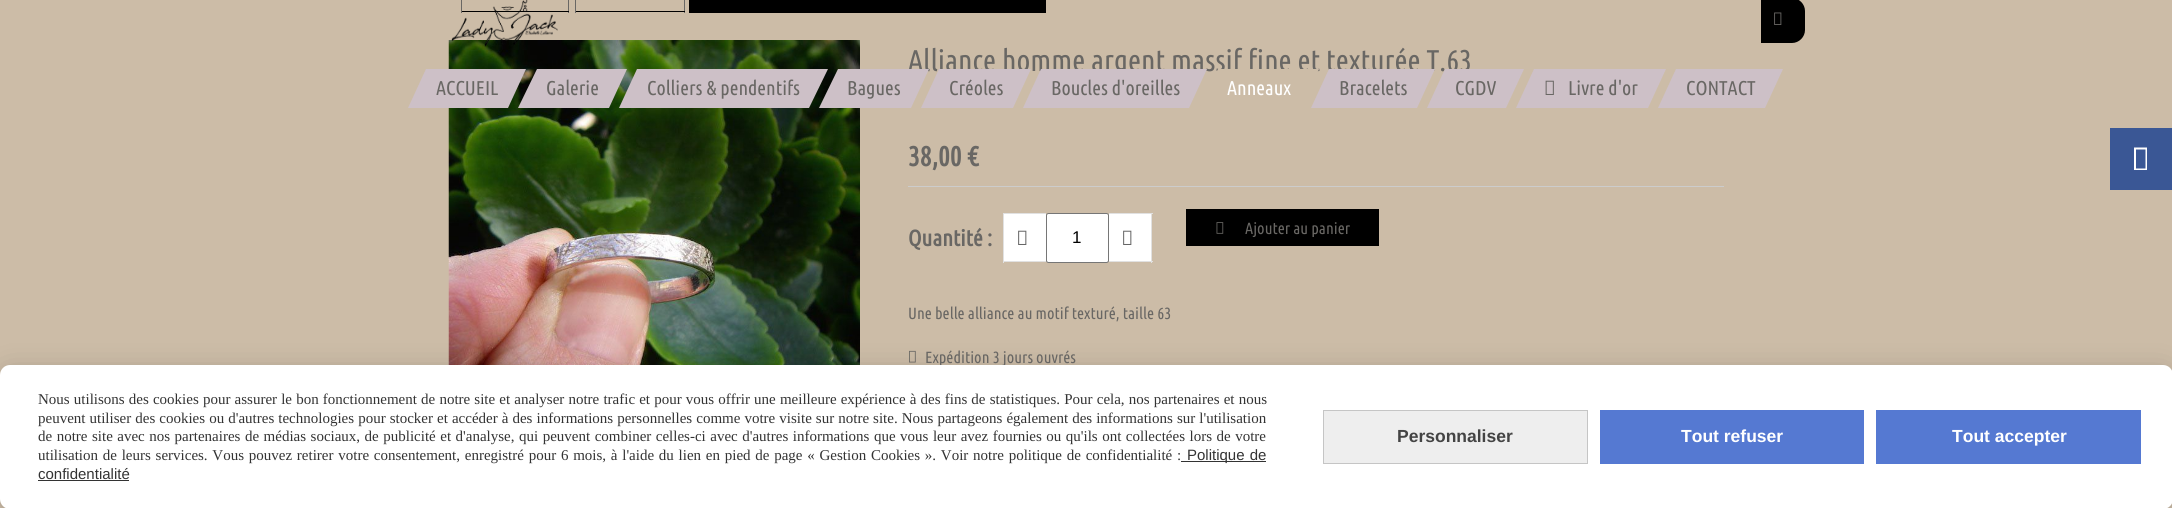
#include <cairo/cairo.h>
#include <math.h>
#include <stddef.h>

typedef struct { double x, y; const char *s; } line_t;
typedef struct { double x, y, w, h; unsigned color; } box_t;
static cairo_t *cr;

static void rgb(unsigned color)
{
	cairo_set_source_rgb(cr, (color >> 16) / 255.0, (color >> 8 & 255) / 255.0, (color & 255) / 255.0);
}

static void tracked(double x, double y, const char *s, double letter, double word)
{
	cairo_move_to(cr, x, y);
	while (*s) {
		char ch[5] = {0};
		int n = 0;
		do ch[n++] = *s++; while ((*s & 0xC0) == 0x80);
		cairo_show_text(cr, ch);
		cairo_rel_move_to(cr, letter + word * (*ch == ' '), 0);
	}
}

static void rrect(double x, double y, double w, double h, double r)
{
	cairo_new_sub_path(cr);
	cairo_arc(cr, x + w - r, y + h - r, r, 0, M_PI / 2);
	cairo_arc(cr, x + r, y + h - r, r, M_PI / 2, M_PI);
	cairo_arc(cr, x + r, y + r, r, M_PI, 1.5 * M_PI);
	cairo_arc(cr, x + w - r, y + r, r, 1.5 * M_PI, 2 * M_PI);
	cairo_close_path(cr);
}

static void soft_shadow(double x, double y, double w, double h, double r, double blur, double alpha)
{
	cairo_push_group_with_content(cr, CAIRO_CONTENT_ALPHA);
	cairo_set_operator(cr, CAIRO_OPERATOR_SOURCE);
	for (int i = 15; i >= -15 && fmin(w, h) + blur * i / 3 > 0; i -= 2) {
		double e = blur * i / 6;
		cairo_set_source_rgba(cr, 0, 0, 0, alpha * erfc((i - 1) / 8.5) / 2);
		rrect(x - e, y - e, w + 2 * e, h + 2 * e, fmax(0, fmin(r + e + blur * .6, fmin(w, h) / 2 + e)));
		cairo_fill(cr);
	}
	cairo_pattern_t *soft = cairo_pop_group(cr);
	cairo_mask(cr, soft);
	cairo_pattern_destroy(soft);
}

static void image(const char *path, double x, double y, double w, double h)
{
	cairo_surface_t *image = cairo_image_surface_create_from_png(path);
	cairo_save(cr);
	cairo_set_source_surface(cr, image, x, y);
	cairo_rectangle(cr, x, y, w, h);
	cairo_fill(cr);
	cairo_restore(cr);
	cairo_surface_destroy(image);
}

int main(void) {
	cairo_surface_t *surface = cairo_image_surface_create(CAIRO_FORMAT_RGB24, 2172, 508);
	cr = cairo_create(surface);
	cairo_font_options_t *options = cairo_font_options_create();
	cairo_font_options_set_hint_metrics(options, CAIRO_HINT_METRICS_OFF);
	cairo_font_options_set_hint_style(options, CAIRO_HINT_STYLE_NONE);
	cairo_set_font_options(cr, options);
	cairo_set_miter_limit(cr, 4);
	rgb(0xccbca7);
	cairo_paint(cr);
	rgb(0x000000);
	cairo_new_path(cr);
	cairo_move_to(cr, 1761, -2);
	cairo_line_to(cr, 1792, -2);
	cairo_curve_to(cr, 1799, -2, 1805, 4, 1805, 11);
	cairo_line_to(cr, 1805, 30);
	cairo_curve_to(cr, 1805, 37, 1799, 43, 1792, 43);
	cairo_line_to(cr, 1761, 43);
	cairo_close_path(cr);
	cairo_fill(cr);
	image("img/1.png", 1774, 12, 8, 13);
	{
		static const box_t items[] = {
			{568, 0, 1, 13, 0x696764},
			{461, 11, 108, 1, 0x000000},
			{461, 0, 1, 13, 0x696764},
			{684, 0, 1, 13, 0x696764},
			{575, 11, 110, 1, 0x000000},
			{575, 0, 1, 13, 0x696764},
			{689, 0, 357, 13, 0x000000},
		};
		for (size_t i = 0; i < sizeof items / sizeof *items; i++) {
			rgb(items[i].color);
			cairo_rectangle(cr, items[i].x, items[i].y, items[i].w, items[i].h);
			cairo_fill(cr);
		}
	}
	image("img/2.png", 448, 40, 412, 325);
	{
		static const box_t items[] = {
			{908, 186, 816, 1, 0xcccccc},
			{1004, 214, 42, 47, 0xffffff},
			{1003, 213, 43, 1, 0xe1e1e1},
			{1003, 261, 43, 1, 0xe1e1e1},
			{1003, 213, 1, 50, 0xe1e1e1},
		};
		for (size_t i = 0; i < sizeof items / sizeof *items; i++) {
			rgb(items[i].color);
			cairo_rectangle(cr, items[i].x, items[i].y, items[i].w, items[i].h);
			cairo_fill(cr);
		}
	}
	image("img/3.png", 1018, 230, 9, 15);
	rgb(0xffffff);
	rrect(1046.5, 213.5, 62, 49, 2);
	cairo_fill_preserve(cr);
	rgb(0x767676);
	cairo_set_line_width(cr, 1);
	cairo_stroke(cr);
	{
		static const box_t items[] = {
			{1109, 214, 42, 47, 0xffffff},
			{1109, 213, 44, 1, 0xe1e1e1},
			{1151, 213, 1, 50, 0xe1e1e1},
			{1109, 261, 44, 1, 0xe1e1e1},
		};
		for (size_t i = 0; i < sizeof items / sizeof *items; i++) {
			rgb(items[i].color);
			cairo_rectangle(cr, items[i].x, items[i].y, items[i].w, items[i].h);
			cairo_fill(cr);
		}
	}
	image("img/3.png", 1123, 230, 9, 15);
	rgb(0x000000);
	cairo_rectangle(cr, 1186, 209, 193, 37);
	cairo_fill(cr);
	image("img/4.png", 1216, 222, 8, 12);
	image("img/5.png", 909, 350, 7, 13);
	image("img/6.png", 451, 0, 107, 47);
	rgb(0xcdc0c7);
	cairo_new_path(cr);
	cairo_move_to(cr, 426, 69);
	cairo_line_to(cr, 526, 69);
	cairo_line_to(cr, 508, 108);
	cairo_line_to(cr, 408, 108);
	cairo_close_path(cr);
	cairo_fill(cr);
	cairo_new_path(cr);
	cairo_move_to(cr, 537, 69);
	cairo_line_to(cr, 627, 69);
	cairo_line_to(cr, 609, 108);
	cairo_line_to(cr, 518, 108);
	cairo_close_path(cr);
	cairo_fill(cr);
	cairo_new_path(cr);
	cairo_move_to(cr, 637, 69);
	cairo_line_to(cr, 828, 69);
	cairo_line_to(cr, 809, 108);
	cairo_line_to(cr, 619, 108);
	cairo_close_path(cr);
	cairo_fill(cr);
	rgb(0x3a5795);
	cairo_rectangle(cr, 2110, 128, 62, 62);
	cairo_fill(cr);
	rgb(0xffffff);
	cairo_new_path(cr);
	cairo_move_to(cr, 2134, 170);
	cairo_line_to(cr, 2134, 147.5);
	cairo_line_to(cr, 2147, 147.5);
	cairo_line_to(cr, 2147, 170);
	cairo_close_path(cr);
	cairo_move_to(cr, 2136, 168.5);
	cairo_line_to(cr, 2145.5, 168.5);
	cairo_line_to(cr, 2145.5, 149.5);
	cairo_line_to(cr, 2136, 149.5);
	cairo_close_path(cr);
	cairo_fill(cr);
	rgb(0x000000);
	soft_shadow(0, 368, 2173, 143, 10, 4, 0.05);
	soft_shadow(0, 370, 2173, 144, 10, 15, 0.15);
	cairo_select_font_face(cr, "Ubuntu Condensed", CAIRO_FONT_SLANT_NORMAL, CAIRO_FONT_WEIGHT_NORMAL);
	cairo_set_font_size(cr, 30);
	rgb(0x696764);
	cairo_move_to(cr, 908, 71);
	cairo_show_text(cr, "Alliance homme argent massif fine et texturée T.63");
	cairo_select_font_face(cr, "Ubuntu Condensed", CAIRO_FONT_SLANT_NORMAL, CAIRO_FONT_WEIGHT_BOLD);
	cairo_set_font_size(cr, 27.5);
	cairo_move_to(cr, 908, 166);
	cairo_show_text(cr, "38,00 €");
	cairo_set_font_size(cr, 22.5);
	cairo_move_to(cr, 908, 246);
	cairo_show_text(cr, "Quantité :");
	cairo_select_font_face(cr, "Liberation Sans", CAIRO_FONT_SLANT_NORMAL, CAIRO_FONT_WEIGHT_NORMAL);
	cairo_set_font_size(cr, 17);
	rgb(0x000000);
	cairo_move_to(cr, 1072, 243);
	cairo_show_text(cr, "1");
	cairo_select_font_face(cr, "Ubuntu Condensed", CAIRO_FONT_SLANT_NORMAL, CAIRO_FONT_WEIGHT_NORMAL);
	cairo_set_font_size(cr, 16.25);
	rgb(0x696764);
	{
		static const line_t items[] = {
			{1245, 234, "Ajouter au panier"},
			{908, 319, "Une belle alliance au motif texturé, taille 63"},
			{925, 363, "Expédition 3 jours ouvrés"},
		};
		for (size_t i = 0; i < sizeof items / sizeof *items; i++) {
			cairo_move_to(cr, items[i].x, items[i].y);
			cairo_show_text(cr, items[i].s);
		}
	}
	cairo_set_font_size(cr, 20);
	{
		static const line_t items[] = {
			{436, 95, "ACCUEIL"},
			{546, 95, "Galerie"},
			{647, 95, "Colliers & pendentifs"},
		};
		for (size_t i = 0; i < sizeof items / sizeof *items; i++) {
			cairo_move_to(cr, items[i].x, items[i].y);
			cairo_show_text(cr, items[i].s);
		}
	}
	rgb(0xcdc0c7);
	cairo_new_path(cr);
	cairo_move_to(cr, 838, 69);
	cairo_line_to(cr, 929, 69);
	cairo_line_to(cr, 911, 108);
	cairo_line_to(cr, 819, 108);
	cairo_close_path(cr);
	cairo_fill(cr);
	rgb(0x696764);
	cairo_move_to(cr, 847, 95);
	cairo_show_text(cr, "Bagues");
	rgb(0xcdc0c7);
	cairo_new_path(cr);
	cairo_move_to(cr, 939, 69);
	cairo_line_to(cr, 1031, 69);
	cairo_line_to(cr, 1013, 108);
	cairo_line_to(cr, 921, 108);
	cairo_close_path(cr);
	cairo_fill(cr);
	rgb(0x696764);
	cairo_move_to(cr, 949, 95);
	cairo_show_text(cr, "Créoles");
	rgb(0xcdc0c7);
	cairo_new_path(cr);
	cairo_move_to(cr, 1041, 69);
	cairo_line_to(cr, 1207, 69);
	cairo_line_to(cr, 1189, 108);
	cairo_line_to(cr, 1023, 108);
	cairo_close_path(cr);
	cairo_fill(cr);
	rgb(0x696764);
	cairo_move_to(cr, 1051, 95);
	cairo_show_text(cr, "Boucles d'oreilles");
	rgb(0xccbca7);
	cairo_new_path(cr);
	cairo_move_to(cr, 1218, 69);
	cairo_line_to(cr, 1319, 69);
	cairo_line_to(cr, 1301, 108);
	cairo_line_to(cr, 1199, 108);
	cairo_close_path(cr);
	cairo_fill(cr);
	rgb(0xffffff);
	cairo_move_to(cr, 1227, 95);
	cairo_show_text(cr, "Anneaux");
	rgb(0xcdc0c7);
	cairo_new_path(cr);
	cairo_move_to(cr, 1329, 69);
	cairo_line_to(cr, 1435, 69);
	cairo_line_to(cr, 1417, 108);
	cairo_line_to(cr, 1311, 108);
	cairo_close_path(cr);
	cairo_fill(cr);
	rgb(0x696764);
	cairo_move_to(cr, 1339, 95);
	cairo_show_text(cr, "Bracelets");
	rgb(0xcdc0c7);
	cairo_new_path(cr);
	cairo_move_to(cr, 1445, 69);
	cairo_line_to(cr, 1524, 69);
	cairo_line_to(cr, 1506, 108);
	cairo_line_to(cr, 1427, 108);
	cairo_close_path(cr);
	cairo_fill(cr);
	rgb(0x696764);
	cairo_move_to(cr, 1455, 95);
	cairo_show_text(cr, "CGDV");
	rgb(0xcdc0c7);
	cairo_new_path(cr);
	cairo_move_to(cr, 1534, 69);
	cairo_line_to(cr, 1666, 69);
	cairo_line_to(cr, 1648, 108);
	cairo_line_to(cr, 1516, 108);
	cairo_close_path(cr);
	cairo_fill(cr);
	image("img/7.png", 1545, 80, 9, 15);
	rgb(0x696764);
	cairo_move_to(cr, 1568, 95);
	cairo_show_text(cr, "Livre d'or");
	rgb(0xcdc0c7);
	cairo_new_path(cr);
	cairo_move_to(cr, 1676, 69);
	cairo_line_to(cr, 1783, 69);
	cairo_line_to(cr, 1765, 108);
	cairo_line_to(cr, 1658, 108);
	cairo_close_path(cr);
	cairo_fill(cr);
	rgb(0x696764);
	cairo_move_to(cr, 1686, 95);
	cairo_show_text(cr, "CONTACT");
	rgb(0xffffff);
	rrect(0, 365, 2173, 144, 10);
	cairo_fill(cr);
	cairo_select_font_face(cr, "Liberation Serif", CAIRO_FONT_SLANT_NORMAL, CAIRO_FONT_WEIGHT_NORMAL);
	cairo_set_font_size(cr, 15);
	rgb(0x333333);
	tracked(38, 404, "Nous utilisons des cookies pour assurer le bon fonctionnement de notre site et analyser notre trafic et pour vous offrir une meilleure expérience à des fins de statistiques. Pour cela, nos partenaires et nous", 0, 0.4);
	tracked(38, 423, "peuvent utiliser des cookies ou d'autres technologies pour stocker et accéder à des informations personnelles comme votre visite sur notre site. Nous partageons également des informations sur l'utilisation", 0, 0.3);
	tracked(38, 441, "de notre site avec nos partenaires de médias sociaux, de publicité et d'analyse, qui peuvent combiner celles-ci avec d'autres informations que vous leur avez fournies ou qu'ils ont collectées lors de votre", 0, 0.75);
	tracked(38, 460, "utilisation de leurs services. Vous pouvez retirer votre consentement, enregistré pour 6 mois, à l'aide du lien en pied de page « Gestion Cookies ». Voir notre politique de confidentialité :", 0, 1);
	cairo_rectangle(cr, 1181, 461, 85, 1);
	cairo_fill(cr);
	cairo_select_font_face(cr, "Liberation Sans", CAIRO_FONT_SLANT_NORMAL, CAIRO_FONT_WEIGHT_NORMAL);
	tracked(1187, 460, "Politique de", 0, 1);
	cairo_move_to(cr, 38, 479);
	cairo_show_text(cr, "confidentialité");
	cairo_rectangle(cr, 38, 480, 91, 1);
	cairo_fill(cr);
	rgb(0xeeeeee);
	cairo_rectangle(cr, 1323.5, 410.5, 264, 53);
	cairo_fill_preserve(cr);
	rgb(0xc5c5c5);
	cairo_stroke(cr);
	cairo_select_font_face(cr, "Liberation Sans", CAIRO_FONT_SLANT_NORMAL, CAIRO_FONT_WEIGHT_BOLD);
	cairo_set_font_size(cr, 17.5);
	rgb(0x444444);
	cairo_move_to(cr, 1397, 442);
	cairo_show_text(cr, "Personnaliser");
	rgb(0x5579d2);
	cairo_rectangle(cr, 1600, 410, 264, 54);
	cairo_fill(cr);
	rgb(0xffffff);
	cairo_move_to(cr, 1681, 442);
	cairo_show_text(cr, "Tout refuser");
	rgb(0x5579d2);
	cairo_rectangle(cr, 1876, 410, 265, 54);
	cairo_fill(cr);
	rgb(0xffffff);
	cairo_move_to(cr, 1952, 442);
	cairo_show_text(cr, "Tout accepter");
	cairo_surface_write_to_png(surface, "page.png");
	cairo_font_options_destroy(options);
	cairo_destroy(cr);
	cairo_surface_destroy(surface);
	return 0;
}
